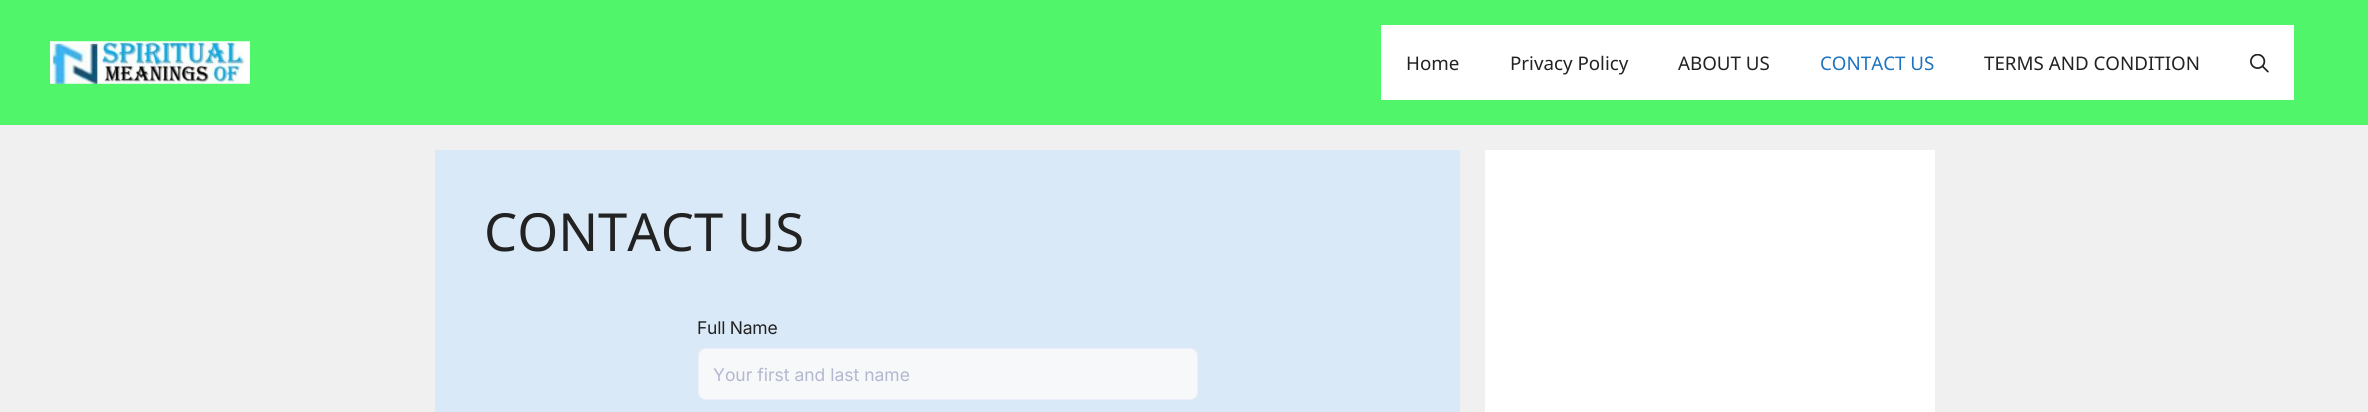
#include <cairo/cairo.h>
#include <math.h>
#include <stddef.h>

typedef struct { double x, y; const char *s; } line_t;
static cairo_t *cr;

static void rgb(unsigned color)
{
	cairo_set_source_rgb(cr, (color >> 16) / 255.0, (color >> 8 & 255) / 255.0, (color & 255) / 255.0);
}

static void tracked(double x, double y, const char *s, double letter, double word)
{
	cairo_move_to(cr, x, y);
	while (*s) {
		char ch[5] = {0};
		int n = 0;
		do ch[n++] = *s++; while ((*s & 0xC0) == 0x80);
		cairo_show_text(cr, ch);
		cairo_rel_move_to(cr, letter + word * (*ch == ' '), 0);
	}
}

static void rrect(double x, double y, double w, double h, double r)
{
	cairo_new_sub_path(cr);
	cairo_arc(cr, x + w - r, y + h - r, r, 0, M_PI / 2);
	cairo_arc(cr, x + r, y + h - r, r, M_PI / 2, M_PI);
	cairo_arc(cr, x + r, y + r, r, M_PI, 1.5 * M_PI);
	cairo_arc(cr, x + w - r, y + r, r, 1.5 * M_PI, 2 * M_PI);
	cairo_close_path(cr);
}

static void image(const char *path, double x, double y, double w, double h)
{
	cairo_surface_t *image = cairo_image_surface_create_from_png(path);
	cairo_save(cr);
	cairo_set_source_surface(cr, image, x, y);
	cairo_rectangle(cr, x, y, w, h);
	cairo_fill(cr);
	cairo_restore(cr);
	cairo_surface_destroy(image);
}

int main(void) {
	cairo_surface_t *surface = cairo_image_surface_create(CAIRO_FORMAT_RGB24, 2368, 412);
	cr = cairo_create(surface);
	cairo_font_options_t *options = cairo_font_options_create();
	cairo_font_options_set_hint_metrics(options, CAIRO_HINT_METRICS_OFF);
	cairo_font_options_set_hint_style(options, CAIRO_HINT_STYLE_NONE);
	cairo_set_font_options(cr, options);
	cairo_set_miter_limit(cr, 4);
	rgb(0xf0f0f0);
	cairo_paint(cr);
	rgb(0x50f569);
	cairo_rectangle(cr, 0, 0, 2368, 125);
	cairo_fill(cr);
	image("img/1.png", 50, 41, 200, 43);
	rgb(0xffffff);
	cairo_rectangle(cr, 1381, 25, 913, 75);
	cairo_fill(cr);
	image("img/2.png", 2250, 54, 19, 19);
	rgb(0xdae9f7);
	cairo_rectangle(cr, 435, 150, 1025, 262);
	cairo_fill(cr);
	rgb(0xf7f8f9);
	rrect(698.5, 348.5, 499, 51, 7.5);
	cairo_fill_preserve(cr);
	rgb(0xeceff9);
	cairo_set_line_width(cr, 1);
	cairo_stroke(cr);
	rgb(0xffffff);
	cairo_rectangle(cr, 1485, 150, 450, 262);
	cairo_fill(cr);
	cairo_select_font_face(cr, "Noto Sans", CAIRO_FONT_SLANT_NORMAL, CAIRO_FONT_WEIGHT_NORMAL);
	cairo_set_font_size(cr, 18.75);
	rgb(0x222222);
	{
		static const line_t items[] = {
			{1406, 70, "Home"},
			{1510, 70, "Privacy Policy"},
			{1678, 70, "ABOUT US"},
		};
		for (size_t i = 0; i < sizeof items / sizeof *items; i++) {
			cairo_move_to(cr, items[i].x, items[i].y);
			cairo_show_text(cr, items[i].s);
		}
	}
	rgb(0x1e73be);
	cairo_move_to(cr, 1820, 70);
	cairo_show_text(cr, "CONTACT US");
	rgb(0x222222);
	cairo_move_to(cr, 1984, 70);
	cairo_show_text(cr, "TERMS AND CONDITION");
	cairo_set_font_size(cr, 52.5);
	cairo_move_to(cr, 484, 251);
	cairo_show_text(cr, "CONTACT US");
	cairo_select_font_face(cr, "Inter", CAIRO_FONT_SLANT_NORMAL, CAIRO_FONT_WEIGHT_NORMAL);
	cairo_set_font_size(cr, 17.5);
	tracked(697, 334, "Full Name", -0.25, 0);
	rgb(0xb3b8d0);
	cairo_move_to(cr, 713, 381);
	cairo_show_text(cr, "Your first and last name");
	cairo_surface_write_to_png(surface, "page.png");
	cairo_font_options_destroy(options);
	cairo_destroy(cr);
	cairo_surface_destroy(surface);
	return 0;
}
